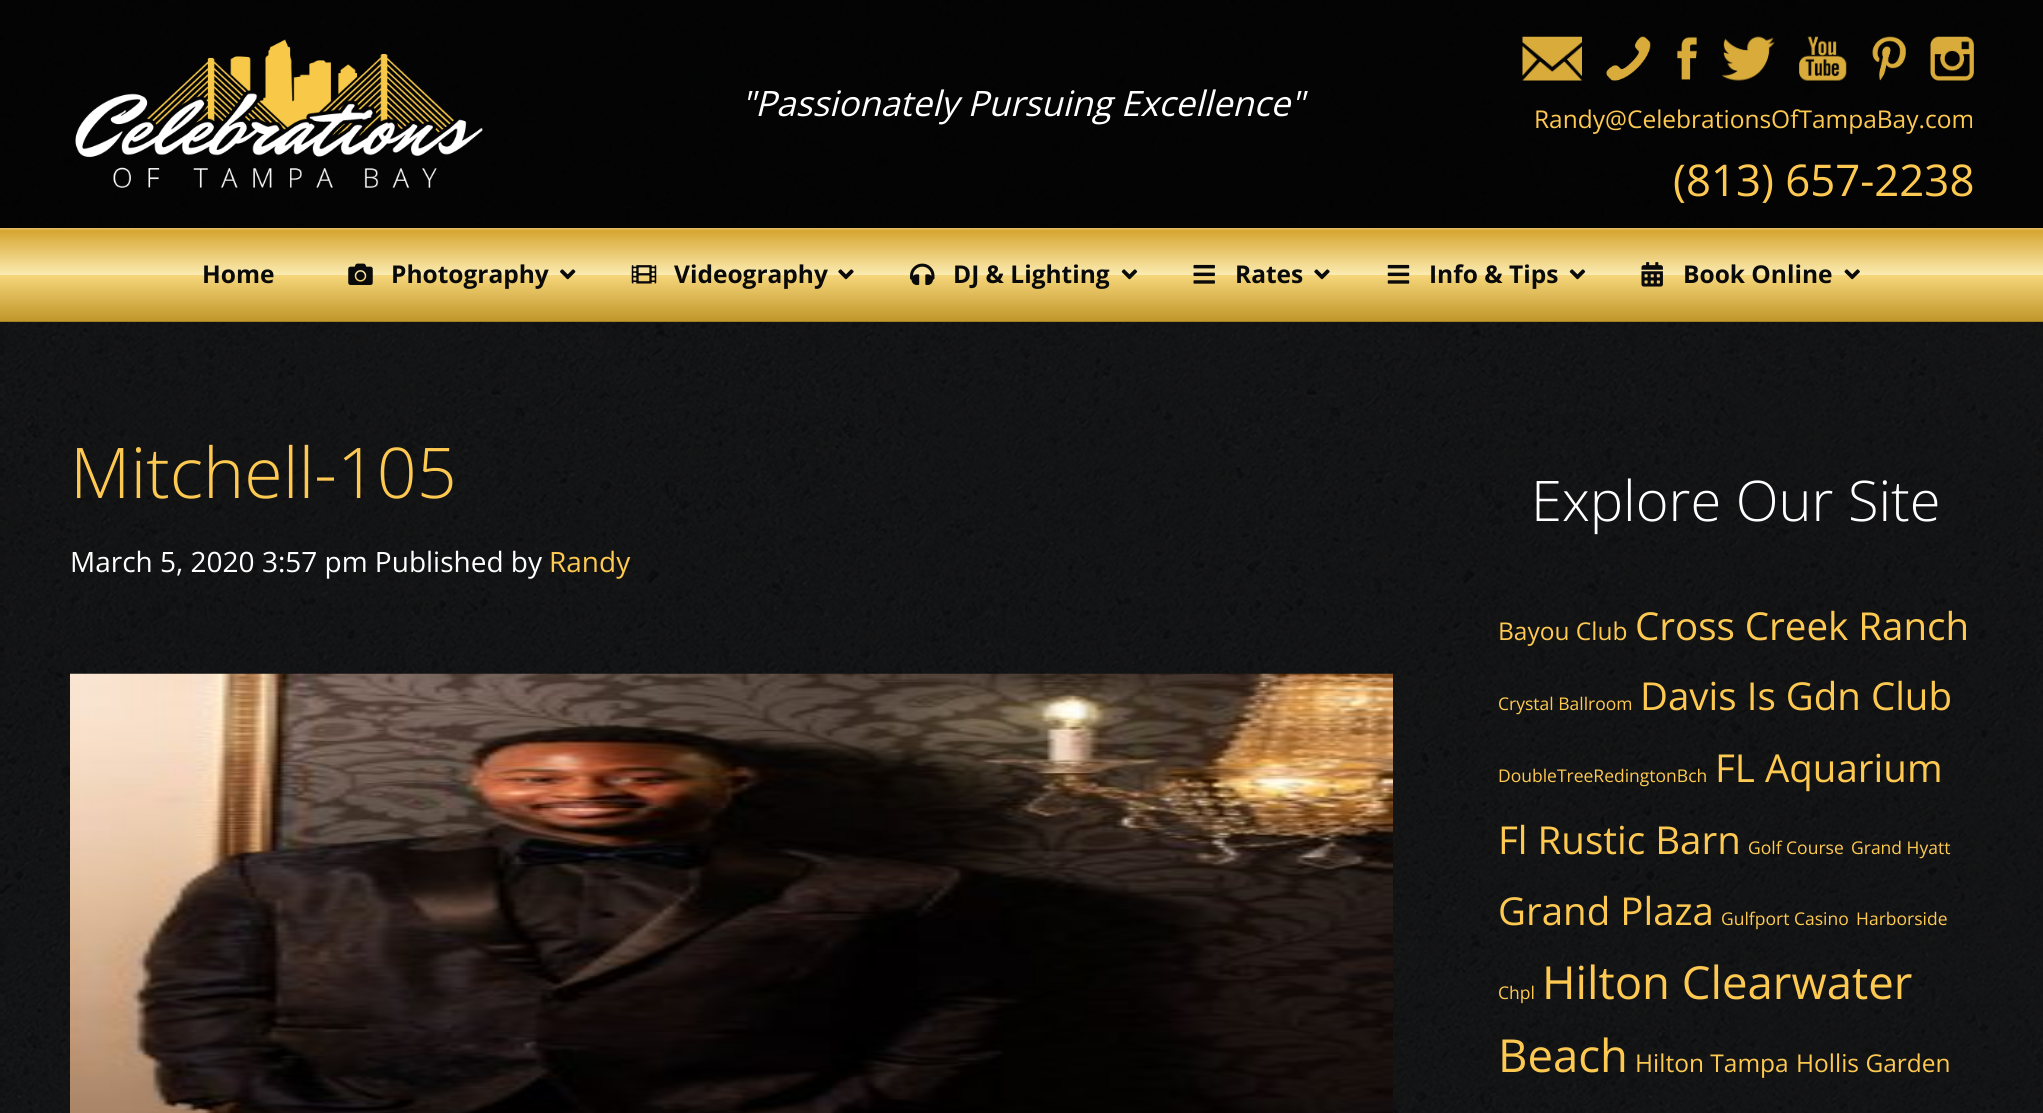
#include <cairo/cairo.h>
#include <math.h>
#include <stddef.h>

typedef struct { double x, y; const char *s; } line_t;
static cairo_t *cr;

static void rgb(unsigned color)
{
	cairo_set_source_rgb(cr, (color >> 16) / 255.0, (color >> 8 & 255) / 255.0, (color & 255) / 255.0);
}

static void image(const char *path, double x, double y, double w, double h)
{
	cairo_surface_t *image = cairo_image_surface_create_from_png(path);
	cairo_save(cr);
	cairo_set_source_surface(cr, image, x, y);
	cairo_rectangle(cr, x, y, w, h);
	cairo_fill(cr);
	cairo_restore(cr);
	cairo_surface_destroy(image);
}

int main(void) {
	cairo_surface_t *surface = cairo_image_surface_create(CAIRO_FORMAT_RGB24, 2043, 1113);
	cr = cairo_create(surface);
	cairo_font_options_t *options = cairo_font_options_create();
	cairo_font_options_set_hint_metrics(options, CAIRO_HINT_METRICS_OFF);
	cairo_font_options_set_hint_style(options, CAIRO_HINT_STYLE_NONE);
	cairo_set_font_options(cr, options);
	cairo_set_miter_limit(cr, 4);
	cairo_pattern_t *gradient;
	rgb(0xffffff);
	cairo_paint(cr);
	image("img/1.png", 0, 0, 2043, 1113);
	cairo_set_source_rgba(cr, 0, 0, 0, 0.8);
	cairo_rectangle(cr, 0, 0, 2043, 228);
	cairo_fill(cr);
	image("img/2.png", 75, 39, 408, 149);
	image("img/3.png", 1522, 36, 60, 45);
	image("img/4.png", 1606, 36, 45, 45);
	image("img/5.png", 1677, 36, 20, 44);
	image("img/6.png", 1722, 36, 53, 45);
	image("img/7.png", 1799, 36, 48, 45);
	image("img/8.png", 1872, 36, 34, 45);
	image("img/9.png", 1930, 36, 44, 45);
	gradient = cairo_pattern_create_linear(1022, 227, 1022, 322);
	cairo_pattern_add_color_stop_rgba(gradient, 0, 0.914, 0.796, 0.486, 1);
	cairo_pattern_add_color_stop_rgba(gradient, 0.04, 0.843, 0.651, 0.192, 1);
	cairo_pattern_add_color_stop_rgba(gradient, 0.5, 0.984, 0.922, 0.69, 1);
	cairo_pattern_add_color_stop_rgba(gradient, 0.51, 0.961, 0.839, 0.478, 1);
	cairo_pattern_add_color_stop_rgba(gradient, 0.99, 0.757, 0.588, 0.165, 1);
	cairo_pattern_add_color_stop_rgba(gradient, 1, 0.51, 0.424, 0.118, 1);
	cairo_set_source(cr, gradient);
	cairo_pattern_destroy(gradient);
	cairo_rectangle(cr, 0, 228, 2043, 94);
	cairo_fill(cr);
	image("img/10.png", 348, 263, 25, 22);
	image("img/11.png", 560, 269, 16, 11);
	image("img/12.png", 631, 265, 26, 19);
	image("img/13.png", 838, 269, 16, 11);
	image("img/14.png", 910, 263, 25, 22);
	image("img/15.png", 1121, 269, 17, 11);
	image("img/16.png", 1193, 264, 22, 20);
	image("img/13.png", 1314, 269, 16, 11);
	image("img/17.png", 1387, 264, 23, 20);
	image("img/15.png", 1569, 269, 17, 11);
	image("img/18.png", 1641, 262, 22, 25);
	image("img/19.png", 1844, 269, 16, 11);
	image("img/20.png", 70, 673, 1323, 440);
	cairo_select_font_face(cr, "Open Sans", CAIRO_FONT_SLANT_ITALIC, CAIRO_FONT_WEIGHT_NORMAL);
	cairo_set_font_size(cr, 35);
	rgb(0xffffff);
	cairo_move_to(cr, 741, 116);
	cairo_show_text(cr, "\"Passionately Pursuing Excellence\"");
	cairo_select_font_face(cr, "Open Sans", CAIRO_FONT_SLANT_NORMAL, CAIRO_FONT_WEIGHT_NORMAL);
	cairo_set_font_size(cr, 24.5);
	rgb(0xfec951);
	cairo_move_to(cr, 1534, 128);
	cairo_show_text(cr, "Randy@CelebrationsOfTampaBay.com");
	cairo_set_font_size(cr, 43.75);
	cairo_move_to(cr, 1673, 196);
	cairo_show_text(cr, "(813) 657-2238");
	cairo_select_font_face(cr, "Open Sans", CAIRO_FONT_SLANT_NORMAL, CAIRO_FONT_WEIGHT_BOLD);
	cairo_set_font_size(cr, 24.5);
	rgb(0x0a0a0a);
	{
		static const line_t items[] = {
			{202, 283, "Home"},
			{391, 283, "Photography"},
			{674, 283, "Videography"},
			{953, 283, "DJ & Lighting"},
			{1235, 283, "Rates"},
			{1429, 283, "Info & Tips"},
			{1683, 283, "Book Online"},
		};
		for (size_t i = 0; i < sizeof items / sizeof *items; i++) {
			cairo_move_to(cr, items[i].x, items[i].y);
			cairo_show_text(cr, items[i].s);
		}
	}
	cairo_select_font_face(cr, "Open Sans Light", CAIRO_FONT_SLANT_NORMAL, CAIRO_FONT_WEIGHT_NORMAL);
	cairo_set_font_size(cr, 70);
	rgb(0xfec951);
	cairo_move_to(cr, 70, 498);
	cairo_show_text(cr, "Mitchell-105");
	cairo_select_font_face(cr, "Open Sans", CAIRO_FONT_SLANT_NORMAL, CAIRO_FONT_WEIGHT_NORMAL);
	cairo_set_font_size(cr, 28);
	rgb(0xffffff);
	cairo_move_to(cr, 70, 572);
	cairo_show_text(cr, "March 5, 2020 3:57 pm Published by");
	rgb(0xfec951);
	cairo_move_to(cr, 549, 572);
	cairo_show_text(cr, "Randy");
	cairo_select_font_face(cr, "Open Sans Light", CAIRO_FONT_SLANT_NORMAL, CAIRO_FONT_WEIGHT_NORMAL);
	cairo_set_font_size(cr, 56);
	rgb(0xffffff);
	cairo_move_to(cr, 1531, 521);
	cairo_show_text(cr, "Explore Our Site");
	cairo_select_font_face(cr, "Open Sans", CAIRO_FONT_SLANT_NORMAL, CAIRO_FONT_WEIGHT_NORMAL);
	cairo_set_font_size(cr, 24.5);
	rgb(0xfec951);
	cairo_move_to(cr, 1498, 640);
	cairo_show_text(cr, "Bayou Club");
	cairo_set_font_size(cr, 38.5);
	cairo_move_to(cr, 1635, 640);
	cairo_show_text(cr, "Cross Creek Ranch");
	cairo_set_font_size(cr, 17.5);
	cairo_move_to(cr, 1498, 710);
	cairo_show_text(cr, "Crystal Ballroom");
	cairo_set_font_size(cr, 38.5);
	cairo_move_to(cr, 1640, 710);
	cairo_show_text(cr, "Davis Is Gdn Club");
	cairo_set_font_size(cr, 17.5);
	cairo_move_to(cr, 1498, 782);
	cairo_show_text(cr, "DoubleTreeRedingtonBch");
	cairo_set_font_size(cr, 38.5);
	cairo_move_to(cr, 1715, 782);
	cairo_show_text(cr, "FL Aquarium");
	cairo_move_to(cr, 1498, 854);
	cairo_show_text(cr, "Fl Rustic Barn");
	cairo_set_font_size(cr, 17.5);
	cairo_move_to(cr, 1748, 854);
	cairo_show_text(cr, "Golf Course");
	cairo_move_to(cr, 1851, 854);
	cairo_show_text(cr, "Grand Hyatt");
	cairo_set_font_size(cr, 38.5);
	cairo_move_to(cr, 1498, 925);
	cairo_show_text(cr, "Grand Plaza");
	cairo_set_font_size(cr, 17.5);
	{
		static const line_t items[] = {
			{1721, 925, "Gulfport Casino"},
			{1856, 925, "Harborside"},
			{1498, 999, "Chpl"},
		};
		for (size_t i = 0; i < sizeof items / sizeof *items; i++) {
			cairo_move_to(cr, items[i].x, items[i].y);
			cairo_show_text(cr, items[i].s);
		}
	}
	cairo_set_font_size(cr, 45.5);
	cairo_move_to(cr, 1542, 999);
	cairo_show_text(cr, "Hilton Clearwater");
	cairo_move_to(cr, 1498, 1072);
	cairo_show_text(cr, "Beach");
	cairo_set_font_size(cr, 24.5);
	cairo_move_to(cr, 1635, 1072);
	cairo_show_text(cr, "Hilton Tampa");
	cairo_move_to(cr, 1796, 1072);
	cairo_show_text(cr, "Hollis Garden");
	cairo_surface_write_to_png(surface, "page.png");
	cairo_font_options_destroy(options);
	cairo_destroy(cr);
	cairo_surface_destroy(surface);
	return 0;
}
